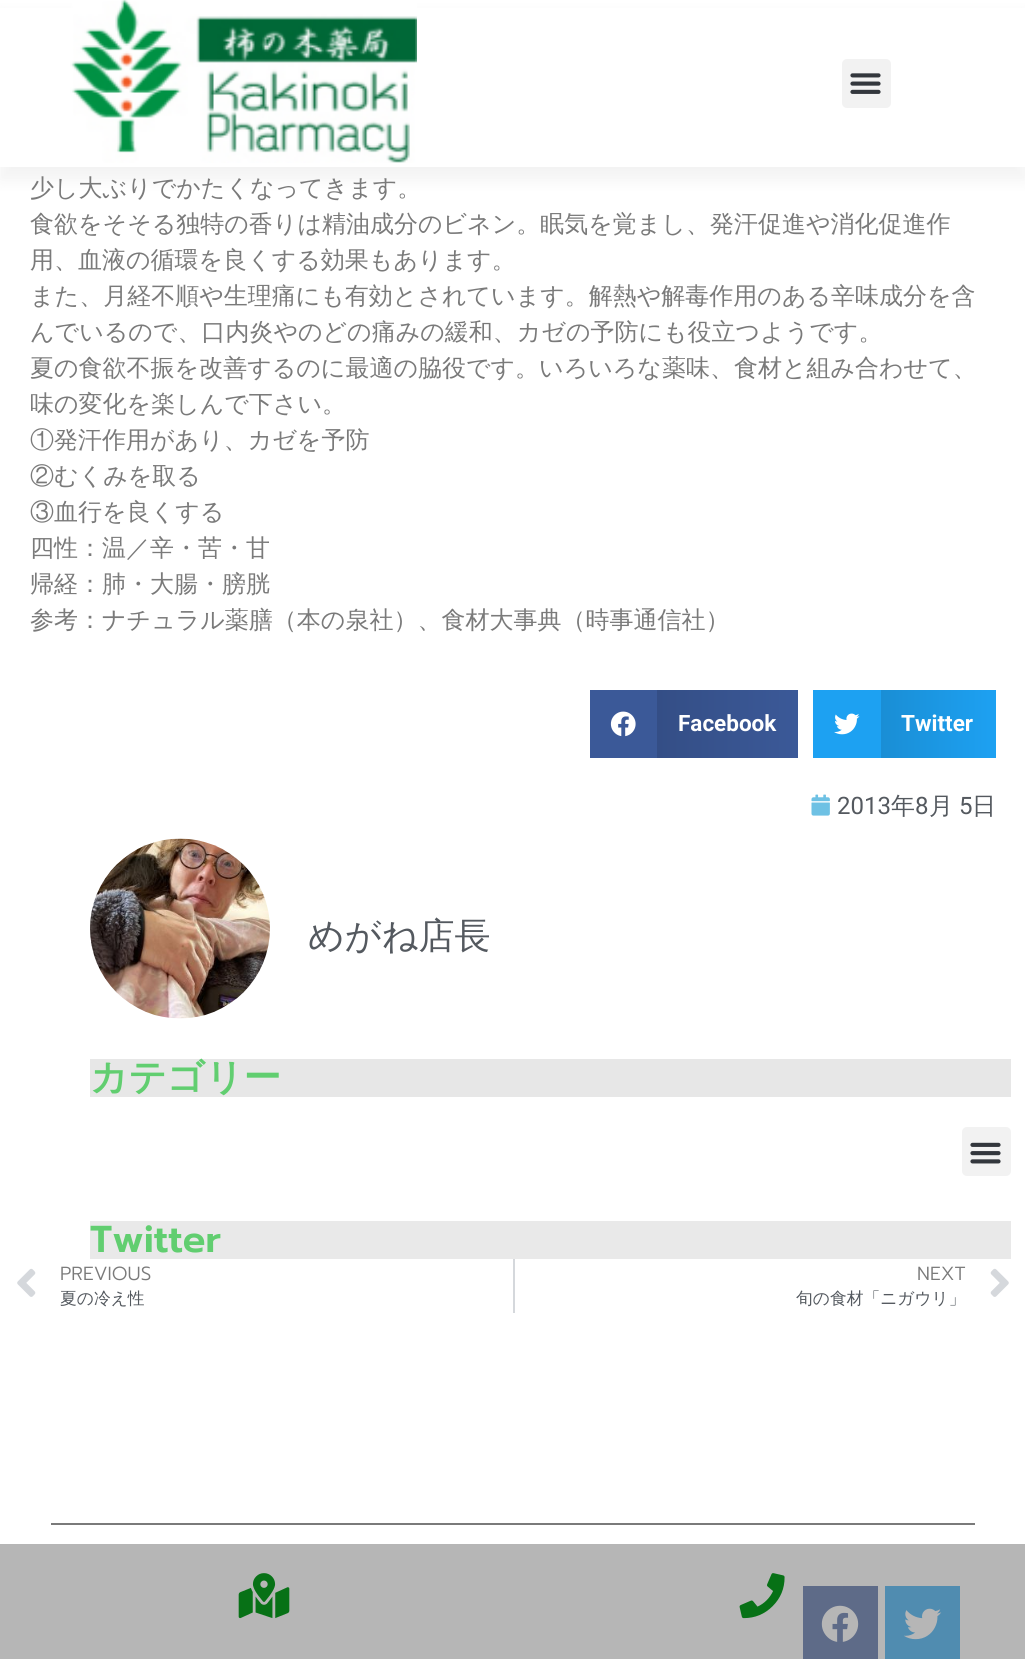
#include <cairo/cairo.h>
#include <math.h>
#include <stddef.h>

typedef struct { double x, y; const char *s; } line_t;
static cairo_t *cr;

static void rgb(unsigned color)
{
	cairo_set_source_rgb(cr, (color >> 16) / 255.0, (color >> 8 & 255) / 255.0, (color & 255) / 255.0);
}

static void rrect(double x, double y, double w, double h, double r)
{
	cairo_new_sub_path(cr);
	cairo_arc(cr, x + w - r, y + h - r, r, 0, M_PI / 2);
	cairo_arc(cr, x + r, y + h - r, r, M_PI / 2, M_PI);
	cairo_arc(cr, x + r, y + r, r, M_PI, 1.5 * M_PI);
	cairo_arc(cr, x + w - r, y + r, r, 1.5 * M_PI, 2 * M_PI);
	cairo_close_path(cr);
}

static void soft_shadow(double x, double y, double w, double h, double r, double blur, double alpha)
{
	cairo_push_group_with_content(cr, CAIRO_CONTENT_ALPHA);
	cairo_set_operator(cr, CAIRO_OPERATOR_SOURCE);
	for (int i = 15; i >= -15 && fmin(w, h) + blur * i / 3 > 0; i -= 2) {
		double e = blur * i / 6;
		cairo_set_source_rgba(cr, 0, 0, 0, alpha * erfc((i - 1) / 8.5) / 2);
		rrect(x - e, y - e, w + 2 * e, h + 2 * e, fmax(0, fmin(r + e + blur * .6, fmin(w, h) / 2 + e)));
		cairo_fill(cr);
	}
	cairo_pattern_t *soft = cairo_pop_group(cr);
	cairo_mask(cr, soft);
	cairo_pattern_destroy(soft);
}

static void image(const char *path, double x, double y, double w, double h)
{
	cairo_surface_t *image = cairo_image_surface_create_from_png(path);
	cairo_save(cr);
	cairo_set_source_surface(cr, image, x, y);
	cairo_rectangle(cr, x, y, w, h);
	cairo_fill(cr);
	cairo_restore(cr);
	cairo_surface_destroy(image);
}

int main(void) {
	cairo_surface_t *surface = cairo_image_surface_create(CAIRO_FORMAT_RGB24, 1025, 1659);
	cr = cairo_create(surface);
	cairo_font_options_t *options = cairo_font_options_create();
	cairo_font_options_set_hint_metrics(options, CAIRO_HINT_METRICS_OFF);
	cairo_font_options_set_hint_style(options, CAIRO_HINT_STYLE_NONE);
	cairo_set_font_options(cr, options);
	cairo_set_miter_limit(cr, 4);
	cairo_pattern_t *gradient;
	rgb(0xffffff);
	cairo_paint(cr);
	rgb(0xb6b6b6);
	cairo_rectangle(cr, 0, 1544, 1025, 115);
	cairo_fill(cr);
	rgb(0x000000);
	soft_shadow(0, 14, 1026, 166, 0, 7.5, 0.05);
	rgb(0xffffff);
	cairo_rectangle(cr, 0, 8, 1025, 159);
	cairo_fill(cr);
	image("img/1.png", 70, 0, 347, 163);
	rgb(0xf2f2f2);
	rrect(842, 59, 49, 49, 5);
	cairo_fill(cr);
	image("img/2.png", 850, 73, 31, 21);
	rgb(0x3b5998);
	cairo_rectangle(cr, 590, 690, 67, 68);
	cairo_fill(cr);
	image("img/3.png", 610, 711, 26, 26);
	gradient = cairo_pattern_create_linear(657, 724, 798, 724);
	cairo_pattern_add_color_stop_rgba(gradient, 0, 0.204, 0.306, 0.525, 1);
	cairo_pattern_add_color_stop_rgba(gradient, 1, 0.231, 0.349, 0.596, 1);
	cairo_set_source(cr, gradient);
	cairo_pattern_destroy(gradient);
	cairo_rectangle(cr, 657, 690, 141, 68);
	cairo_fill(cr);
	rgb(0x1da1f2);
	cairo_rectangle(cr, 813, 690, 68, 68);
	cairo_fill(cr);
	image("img/4.png", 834, 713, 26, 22);
	gradient = cairo_pattern_create_linear(881, 724, 996, 724);
	cairo_pattern_add_color_stop_rgba(gradient, 0, 0.102, 0.557, 0.835, 1);
	cairo_pattern_add_color_stop_rgba(gradient, 1, 0.114, 0.631, 0.949, 1);
	cairo_set_source(cr, gradient);
	cairo_pattern_destroy(gradient);
	cairo_rectangle(cr, 881, 690, 115, 68);
	cairo_fill(cr);
	image("img/5.png", 811, 794, 19, 22);
	image("img/6.png", 90, 838, 180, 181);
	rgb(0xe7e7e7);
	cairo_rectangle(cr, 90, 1059, 921, 38);
	cairo_fill(cr);
	rgb(0xf2f2f2);
	rrect(962, 1127, 49, 49, 5);
	cairo_fill(cr);
	image("img/7.png", 970, 1142, 31, 22);
	rgb(0xe9e9e9);
	cairo_rectangle(cr, 90, 1221, 921, 38);
	cairo_fill(cr);
	image("img/8.png", 17, 1268, 19, 29);
	rgb(0xd5d8dc);
	cairo_rectangle(cr, 513, 1259, 2, 54);
	cairo_fill(cr);
	image("img/9.png", 990, 1268, 19, 29);
	rgb(0x7a7a7a);
	cairo_rectangle(cr, 51, 1523, 924, 2);
	cairo_fill(cr);
	rgb(0x5e6b88);
	cairo_rectangle(cr, 803, 1586, 75, 73);
	cairo_fill(cr);
	image("img/10.png", 821, 1605, 38, 37);
	rgb(0x508cb0);
	cairo_rectangle(cr, 885, 1586, 75, 73);
	cairo_fill(cr);
	image("img/11.png", 904, 1608, 38, 32);
	image("img/12.png", 238, 1573, 52, 46);
	image("img/13.png", 739, 1573, 46, 46);
	cairo_select_font_face(cr, "WenQuanYi Zen Hei Medium", CAIRO_FONT_SLANT_NORMAL, CAIRO_FONT_WEIGHT_NORMAL);
	cairo_set_font_size(cr, 24);
	rgb(0x7a7a7a);
	{
		static const line_t items[] = {
			{30, 196, "少し大ぶりでかたくなってきます。"},
			{30, 232, "食欲をそそる独特の香りは精油成分のビネン。眠気を覚まし、発汗促進や消化促進作"},
			{30, 268, "用、血液の循環を良くする効果もあります。"},
			{30, 304, "また、月経不順や生理痛にも有効とされています。解熱や解毒作用のある辛味成分を含"},
			{30, 340, "んでいるので、口内炎やのどの痛みの緩和、カゼの予防にも役立つようです。"},
			{30, 376, "夏の食欲不振を改善するのに最適の脇役です。いろいろな薬味、食材と組み合わせて、"},
			{30, 412, "味の変化を楽しんで下さい。"},
			{30, 448, "①発汗作用があり、カゼを予防"},
			{30, 484, "②むくみを取る"},
			{30, 520, "③血行を良くする"},
			{30, 556, "四性：温／辛・苦・甘"},
			{30, 592, "帰経：肺・大腸・膀胱"},
			{30, 628, "参考：ナチュラル薬膳（本の泉社）、食材大事典（時事通信社）"},
		};
		for (size_t i = 0; i < sizeof items / sizeof *items; i++) {
			cairo_move_to(cr, items[i].x, items[i].y);
			cairo_show_text(cr, items[i].s);
		}
	}
	cairo_select_font_face(cr, "Roboto", CAIRO_FONT_SLANT_NORMAL, CAIRO_FONT_WEIGHT_BOLD);
	cairo_set_font_size(cr, 22.5);
	rgb(0xffffff);
	cairo_move_to(cr, 678, 731);
	cairo_show_text(cr, "Facebook");
	cairo_move_to(cr, 901, 731);
	cairo_show_text(cr, "Twitter");
	cairo_select_font_face(cr, "Roboto", CAIRO_FONT_SLANT_NORMAL, CAIRO_FONT_WEIGHT_NORMAL);
	cairo_set_font_size(cr, 24);
	rgb(0x54595f);
	cairo_move_to(cr, 837, 814);
	cairo_show_text(cr, "2013");
	cairo_select_font_face(cr, "WenQuanYi Zen Hei Medium", CAIRO_FONT_SLANT_NORMAL, CAIRO_FONT_WEIGHT_NORMAL);
	cairo_move_to(cr, 891, 814);
	cairo_show_text(cr, "年");
	cairo_select_font_face(cr, "Roboto", CAIRO_FONT_SLANT_NORMAL, CAIRO_FONT_WEIGHT_NORMAL);
	cairo_move_to(cr, 915, 814);
	cairo_show_text(cr, "8");
	cairo_select_font_face(cr, "WenQuanYi Zen Hei Medium", CAIRO_FONT_SLANT_NORMAL, CAIRO_FONT_WEIGHT_NORMAL);
	cairo_move_to(cr, 929, 814);
	cairo_show_text(cr, "月");
	cairo_select_font_face(cr, "Roboto", CAIRO_FONT_SLANT_NORMAL, CAIRO_FONT_WEIGHT_NORMAL);
	cairo_move_to(cr, 959, 814);
	cairo_show_text(cr, "5");
	cairo_select_font_face(cr, "WenQuanYi Zen Hei Medium", CAIRO_FONT_SLANT_NORMAL, CAIRO_FONT_WEIGHT_NORMAL);
	cairo_move_to(cr, 972, 814);
	cairo_show_text(cr, "日");
	cairo_set_font_size(cr, 36);
	cairo_move_to(cr, 308, 948);
	cairo_show_text(cr, "めがね店長");
	cairo_select_font_face(cr, "WenQuanYi Zen Hei", CAIRO_FONT_SLANT_NORMAL, CAIRO_FONT_WEIGHT_BOLD);
	cairo_set_font_size(cr, 37.5);
	rgb(0x61ce70);
	cairo_move_to(cr, 90, 1090);
	cairo_show_text(cr, "カテゴリー");
	cairo_select_font_face(cr, "Prompt SemiBold", CAIRO_FONT_SLANT_NORMAL, CAIRO_FONT_WEIGHT_NORMAL);
	cairo_move_to(cr, 90, 1252);
	cairo_show_text(cr, "Twitter");
	cairo_select_font_face(cr, "Prompt Light", CAIRO_FONT_SLANT_NORMAL, CAIRO_FONT_WEIGHT_NORMAL);
	cairo_set_font_size(cr, 19);
	rgb(0x7a7a7a);
	cairo_move_to(cr, 60, 1280);
	cairo_show_text(cr, "PREVIOUS");
	cairo_select_font_face(cr, "WenQuanYi Zen Hei Medium", CAIRO_FONT_SLANT_NORMAL, CAIRO_FONT_WEIGHT_NORMAL);
	cairo_set_font_size(cr, 16.75);
	rgb(0x54595f);
	cairo_move_to(cr, 60, 1304);
	cairo_show_text(cr, "夏の冷え性");
	cairo_select_font_face(cr, "Prompt Light", CAIRO_FONT_SLANT_NORMAL, CAIRO_FONT_WEIGHT_NORMAL);
	cairo_set_font_size(cr, 19);
	rgb(0x7a7a7a);
	cairo_move_to(cr, 917, 1280);
	cairo_show_text(cr, "NEXT");
	cairo_select_font_face(cr, "WenQuanYi Zen Hei Medium", CAIRO_FONT_SLANT_NORMAL, CAIRO_FONT_WEIGHT_NORMAL);
	cairo_set_font_size(cr, 16.75);
	rgb(0x54595f);
	cairo_move_to(cr, 796, 1304);
	cairo_show_text(cr, "旬の食材「ニガウリ」");
	cairo_surface_write_to_png(surface, "page.png");
	cairo_font_options_destroy(options);
	cairo_destroy(cr);
	cairo_surface_destroy(surface);
	return 0;
}
